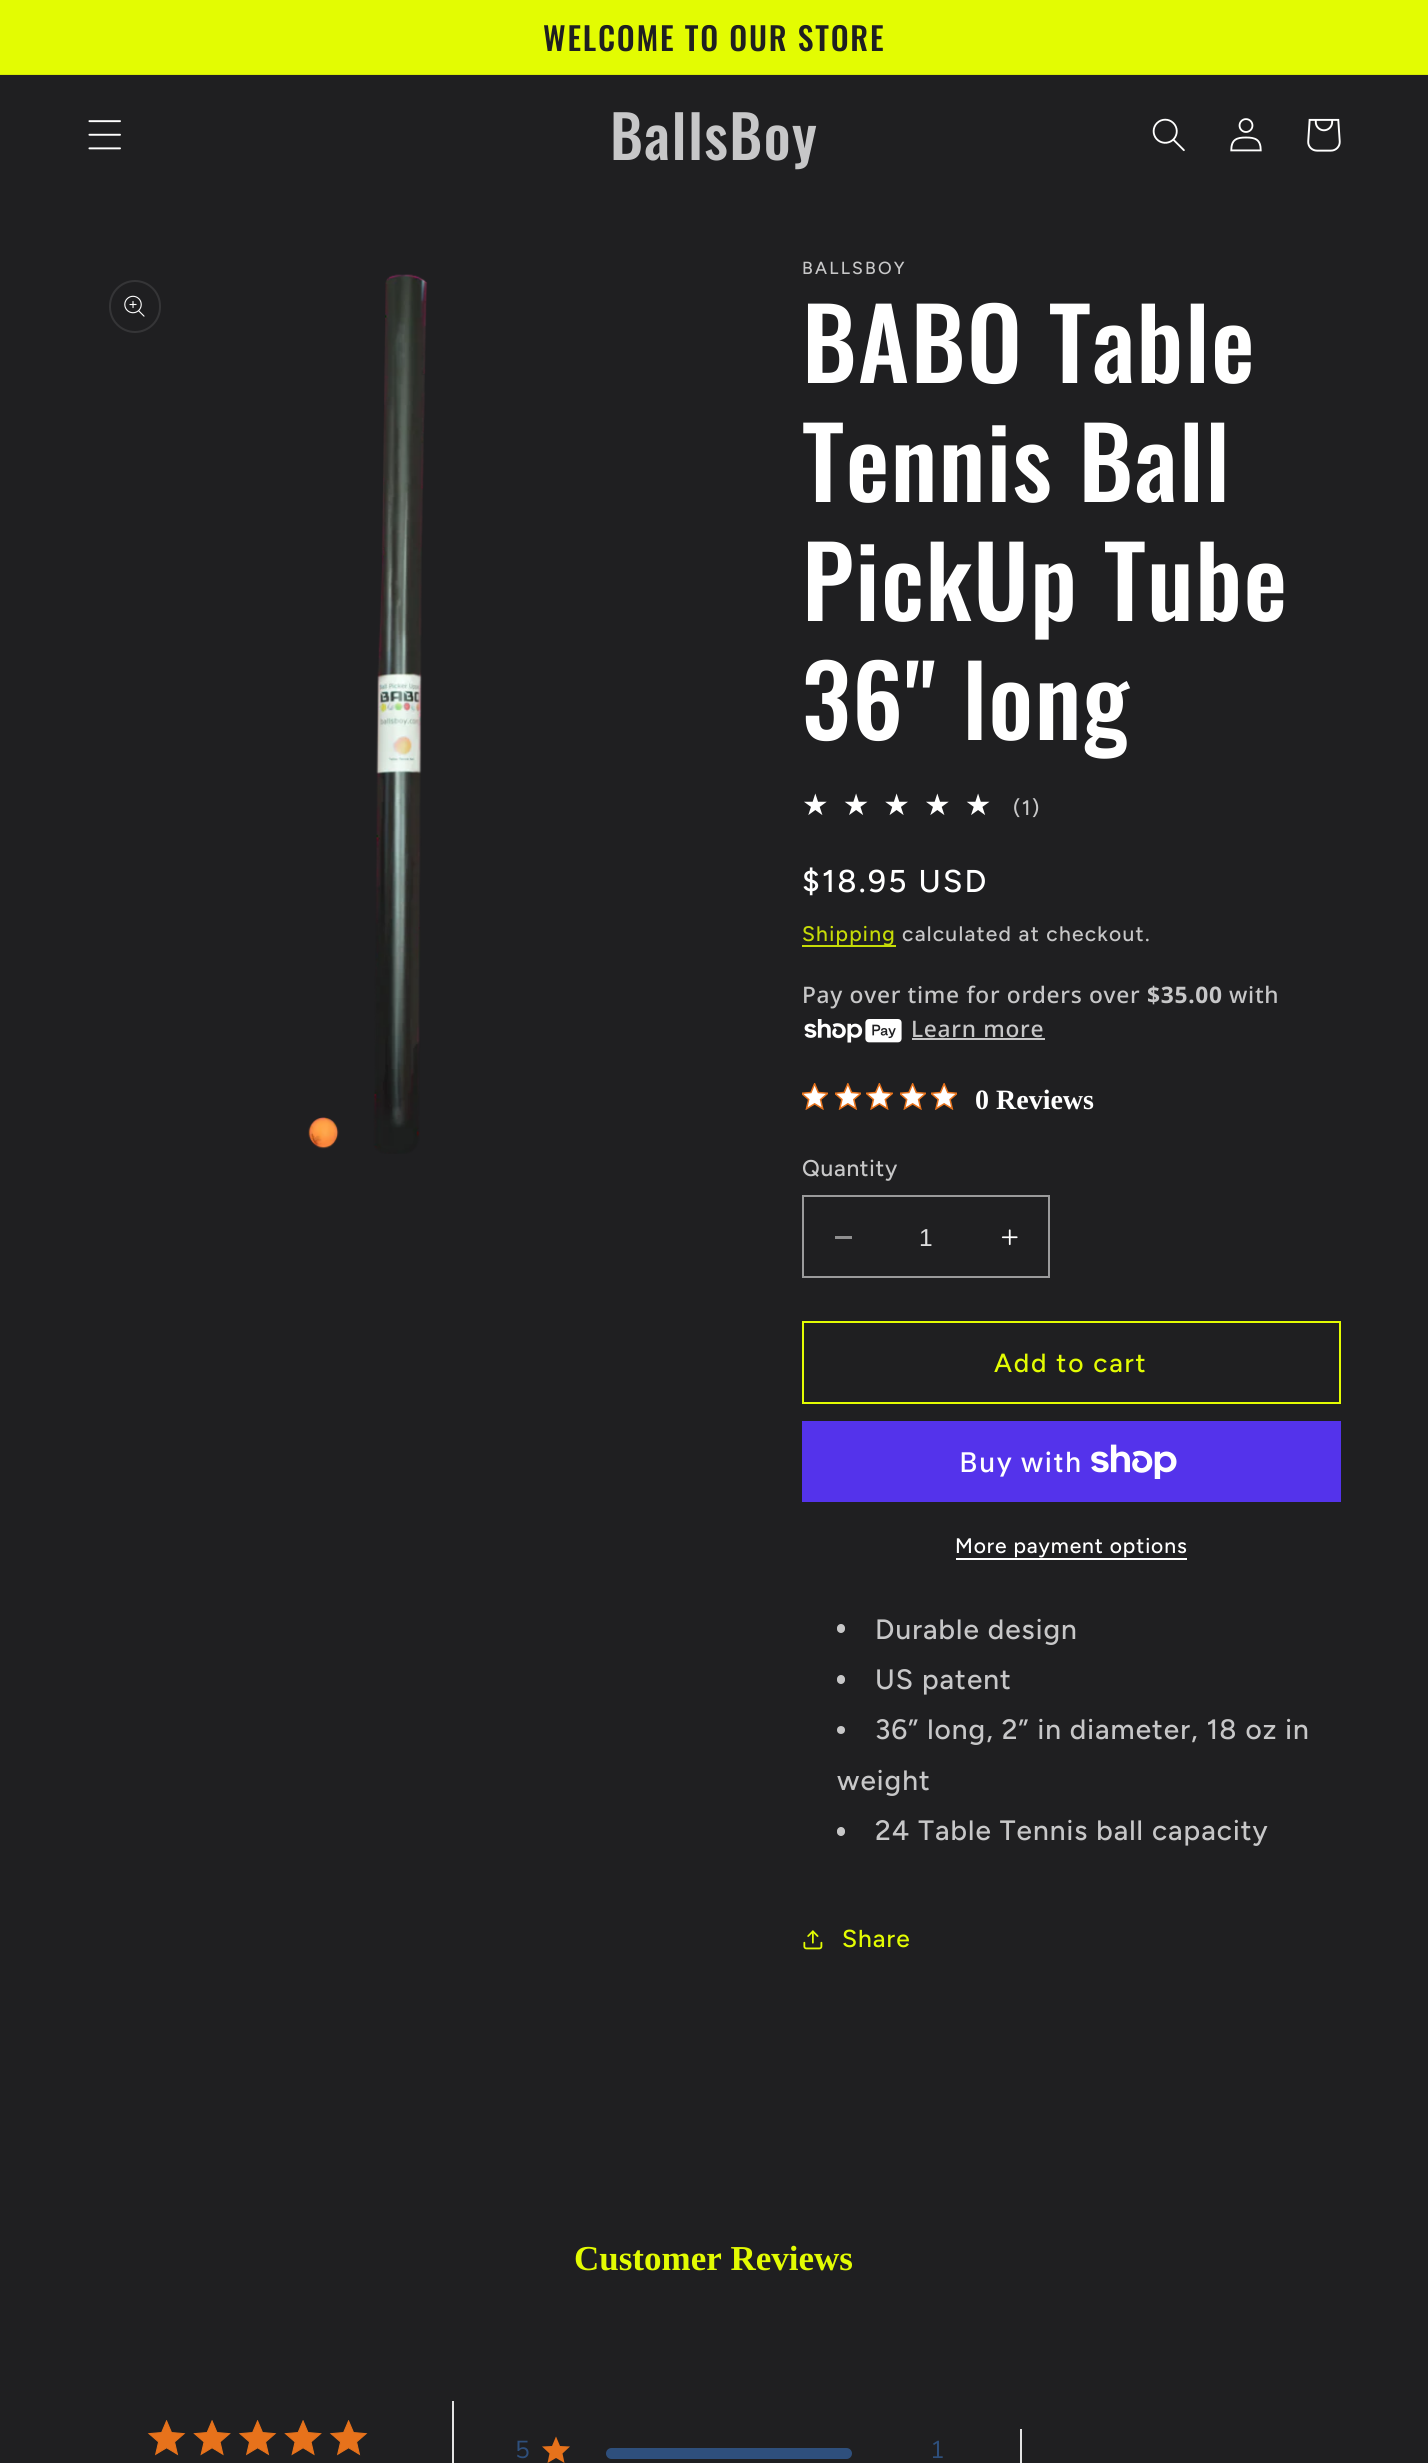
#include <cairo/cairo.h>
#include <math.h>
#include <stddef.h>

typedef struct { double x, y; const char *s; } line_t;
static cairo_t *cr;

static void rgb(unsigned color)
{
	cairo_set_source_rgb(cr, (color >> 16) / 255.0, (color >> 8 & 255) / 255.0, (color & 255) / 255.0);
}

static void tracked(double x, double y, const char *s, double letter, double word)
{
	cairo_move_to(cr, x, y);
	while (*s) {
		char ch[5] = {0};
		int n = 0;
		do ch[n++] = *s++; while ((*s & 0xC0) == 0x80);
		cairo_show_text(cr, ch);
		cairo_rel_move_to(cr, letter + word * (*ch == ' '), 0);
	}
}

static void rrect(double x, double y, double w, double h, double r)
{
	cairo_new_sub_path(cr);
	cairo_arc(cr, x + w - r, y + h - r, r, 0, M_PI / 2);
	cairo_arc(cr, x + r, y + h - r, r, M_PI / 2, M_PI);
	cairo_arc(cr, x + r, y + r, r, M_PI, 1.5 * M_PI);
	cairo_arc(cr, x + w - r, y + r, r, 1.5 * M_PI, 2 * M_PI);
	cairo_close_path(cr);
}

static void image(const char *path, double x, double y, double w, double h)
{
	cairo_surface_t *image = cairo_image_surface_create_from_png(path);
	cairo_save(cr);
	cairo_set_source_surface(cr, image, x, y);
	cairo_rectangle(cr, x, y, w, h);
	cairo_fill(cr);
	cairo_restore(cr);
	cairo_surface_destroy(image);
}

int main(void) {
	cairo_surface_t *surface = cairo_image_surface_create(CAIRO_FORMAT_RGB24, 1428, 2463);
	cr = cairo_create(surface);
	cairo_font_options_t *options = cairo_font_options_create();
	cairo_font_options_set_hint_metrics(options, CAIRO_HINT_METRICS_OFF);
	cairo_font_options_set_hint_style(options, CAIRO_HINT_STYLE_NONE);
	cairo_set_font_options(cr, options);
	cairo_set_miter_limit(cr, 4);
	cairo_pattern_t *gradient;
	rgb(0x1f1f21);
	cairo_paint(cr);
	rgb(0xe3fc02);
	cairo_rectangle(cr, 0, 0, 1428, 74);
	cairo_fill(cr);
	rgb(0xd3ea04);
	cairo_rectangle(cr, 0, 74, 1428, 1);
	cairo_fill(cr);
	image("img/1.png", 88, 120, 33, 30);
	image("img/2.png", 1152, 118, 33, 34);
	image("img/3.png", 1230, 118, 32, 34);
	image("img/4.png", 1307, 118, 34, 34);
	rrect(110, 281, 50, 51, 25);
	rgb(0x353537);
	cairo_stroke(cr);
	image("img/5.png", 124, 295, 21, 22);
	image("img/6.png", 308, 274, 120, 880);
	rgb(0xc6db07);
	cairo_rectangle(cr, 802, 945, 94, 2);
	cairo_fill(cr);
	image("img/7.png", 804, 1019, 98, 24);
	rgb(0xc7c7c8);
	cairo_rectangle(cr, 912, 1038, 133, 2);
	cairo_fill(cr);
	image("img/8.png", 802, 1083, 26, 27);
	image("img/9.png", 835, 1083, 26, 27);
	image("img/10.png", 866, 1083, 27, 27);
	image("img/8.png", 900, 1083, 26, 27);
	image("img/11.png", 931, 1083, 26, 27);
	rgb(0x8f8f90);
	cairo_rectangle(cr, 835, 1236, 17, 3);
	cairo_fill(cr);
	image("img/12.png", 1001, 1229, 17, 17);
	cairo_rectangle(cr, 803, 1196, 246, 81);
	rgb(0x9a9a9b);
	cairo_stroke(cr);
	cairo_rectangle(cr, 803, 1322, 537, 81);
	rgb(0xe3fc02);
	cairo_stroke(cr);
	rgb(0x5433eb);
	cairo_rectangle(cr, 802, 1421, 539, 81);
	cairo_fill(cr);
	image("img/13.png", 1091, 1444, 86, 35);
	rgb(0xffffff);
	cairo_rectangle(cr, 956, 1558, 231, 2);
	cairo_fill(cr);
	rgb(0xc7c7c8);
	rrect(837, 1624, 8, 9, 4);
	cairo_fill(cr);
	rrect(837, 1675, 8, 9, 4);
	cairo_fill(cr);
	cairo_arc(cr, 841, 1730, 4, 0, 2 * M_PI);
	cairo_fill(cr);
	rrect(837, 1827, 8, 9, 4);
	cairo_fill(cr);
	image("img/14.png", 803, 1930, 20, 20);
	image("img/15.png", 147, 2420, 39, 36);
	image("img/16.png", 193, 2420, 38, 36);
	image("img/15.png", 238, 2420, 39, 36);
	image("img/16.png", 284, 2420, 38, 36);
	image("img/15.png", 329, 2420, 39, 36);
	rgb(0xe3e3e3);
	cairo_rectangle(cr, 452, 2401, 2, 62);
	cairo_fill(cr);
	cairo_rectangle(cr, 1020, 2429, 2, 34);
	cairo_fill(cr);
	gradient = cairo_pattern_create_linear(542, 2436, 570, 2436);
	cairo_pattern_add_color_stop_rgba(gradient, 1, 0.906, 0.447, 0.106, 1);
	cairo_pattern_add_color_stop_rgba(gradient, 1, 0.918, 0.918, 0.918, 1);
	cairo_set_source(cr, gradient);
	cairo_pattern_destroy(gradient);
	cairo_new_path(cr);
	cairo_move_to(cr, 556, 2458);
	cairo_line_to(cr, 564.5, 2463);
	cairo_line_to(cr, 562.5, 2453.5);
	cairo_line_to(cr, 570, 2446.5);
	cairo_line_to(cr, 560, 2446);
	cairo_line_to(cr, 556, 2436.5);
	cairo_line_to(cr, 552, 2446);
	cairo_line_to(cr, 542, 2446.5);
	cairo_line_to(cr, 549.5, 2453.5);
	cairo_line_to(cr, 547.5, 2463);
	cairo_close_path(cr);
	cairo_fill(cr);
	rgb(0x2e4f7c);
	rrect(606, 2448, 246, 11, 5.5);
	cairo_fill(cr);
	cairo_select_font_face(cr, "Oswald Medium", CAIRO_FONT_SLANT_NORMAL, CAIRO_FONT_WEIGHT_NORMAL);
	cairo_set_font_size(cr, 31.8);
	rgb(0x1f1f21);
	tracked(543, 51, "WELCOME TO OUR STORE", 1.75, 0);
	cairo_set_font_size(cr, 59);
	rgb(0xc7c7c8);
	tracked(610, 160, "BallsBoy", 1.5, 0);
	cairo_select_font_face(cr, "Figtree Medium", CAIRO_FONT_SLANT_NORMAL, CAIRO_FONT_WEIGHT_NORMAL);
	cairo_set_font_size(cr, 17.5);
	tracked(802, 274, "BALLSBOY", 2.25, 0);
	cairo_select_font_face(cr, "Oswald Medium", CAIRO_FONT_SLANT_NORMAL, CAIRO_FONT_WEIGHT_NORMAL);
	cairo_set_font_size(cr, 98);
	rgb(0xffffff);
	{
		static const line_t items[] = {
			{802, 383, "BABO Table"},
			{802, 502, "Tennis Ball"},
			{802, 621, "PickUp Tube"},
			{802, 740, "36\" long"},
		};
		for (size_t i = 0; i < sizeof items / sizeof *items; i++) {
			tracked(items[i].x, items[i].y, items[i].s, 1.5, 0);
		}
	}
	cairo_select_font_face(cr, "DejaVu Sans", CAIRO_FONT_SLANT_NORMAL, CAIRO_FONT_WEIGHT_NORMAL);
	cairo_set_font_size(cr, 29.75);
	gradient = cairo_pattern_create_linear(802, 805, 1005, 805);
	cairo_pattern_add_color_stop_rgba(gradient, 1, 1, 1, 1, 1);
	cairo_pattern_add_color_stop_rgba(gradient, 1, 0.255, 0.255, 0.259, 1);
	cairo_set_source(cr, gradient);
	cairo_pattern_destroy(gradient);
	tracked(802, 815, "★★★★★", 14, 0);
	cairo_select_font_face(cr, "Figtree Medium", CAIRO_FONT_SLANT_NORMAL, CAIRO_FONT_WEIGHT_NORMAL);
	cairo_set_font_size(cr, 21);
	rgb(0xc7c7c8);
	tracked(1013, 815, "(1)", 1.25, 0);
	cairo_set_font_size(cr, 31.5);
	rgb(0xffffff);
	tracked(802, 892, "$18.95 USD", 2.25, 0);
	cairo_set_font_size(cr, 21);
	rgb(0xc6db07);
	tracked(802, 941, "Shipping", 1.25, 0);
	rgb(0xc7c7c8);
	tracked(902, 941, "calculated at checkout.", 1.25, 0);
	cairo_select_font_face(cr, "Noto Sans Medium", CAIRO_FONT_SLANT_NORMAL, CAIRO_FONT_WEIGHT_NORMAL);
	cairo_set_font_size(cr, 22.75);
	tracked(802, 1003, "Pay over time for orders over", 0.7, 0);
	cairo_select_font_face(cr, "Noto Sans", CAIRO_FONT_SLANT_NORMAL, CAIRO_FONT_WEIGHT_BOLD);
	tracked(1147, 1003, "$35.00", 0.7, 0);
	cairo_select_font_face(cr, "Noto Sans Medium", CAIRO_FONT_SLANT_NORMAL, CAIRO_FONT_WEIGHT_NORMAL);
	tracked(1229, 1003, "with", 0.7, 0);
	tracked(911, 1037, "Learn more", 0.7, 0);
	cairo_select_font_face(cr, "Liberation Serif", CAIRO_FONT_SLANT_NORMAL, CAIRO_FONT_WEIGHT_BOLD);
	cairo_set_font_size(cr, 28);
	rgb(0xffffff);
	cairo_move_to(cr, 975, 1109);
	cairo_show_text(cr, "0 Reviews");
	cairo_select_font_face(cr, "Figtree Medium", CAIRO_FONT_SLANT_NORMAL, CAIRO_FONT_WEIGHT_NORMAL);
	cairo_set_font_size(cr, 22.75);
	rgb(0xc7c7c8);
	tracked(802, 1176, "Quantity", 0.7, 0);
	cairo_select_font_face(cr, "Liberation Sans", CAIRO_FONT_SLANT_NORMAL, CAIRO_FONT_WEIGHT_NORMAL);
	cairo_set_font_size(cr, 24.5);
	rgb(0xddddde);
	cairo_move_to(cr, 919, 1246);
	cairo_show_text(cr, "1");
	cairo_select_font_face(cr, "Figtree Medium", CAIRO_FONT_SLANT_NORMAL, CAIRO_FONT_WEIGHT_NORMAL);
	cairo_set_font_size(cr, 26.25);
	rgb(0xe3fc02);
	tracked(994, 1372, "Add to cart", 1.75, 0);
	cairo_select_font_face(cr, "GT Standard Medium", CAIRO_FONT_SLANT_NORMAL, CAIRO_FONT_WEIGHT_NORMAL);
	cairo_set_font_size(cr, 28);
	rgb(0xffffff);
	tracked(959, 1472, "Buy with", 1.05, 0);
	cairo_select_font_face(cr, "Figtree Medium", CAIRO_FONT_SLANT_NORMAL, CAIRO_FONT_WEIGHT_NORMAL);
	cairo_set_font_size(cr, 21);
	tracked(955, 1553, "More payment options", 0.9, 0);
	cairo_set_font_size(cr, 28);
	rgb(0xc7c7c8);
	{
		static const line_t items[] = {
			{875, 1639, "Durable design"},
			{875, 1689, "US patent"},
			{875, 1739, "36” long, 2” in diameter, 18 oz in"},
			{837, 1790, "weight"},
			{875, 1840, "24 Table Tennis ball capacity"},
		};
		for (size_t i = 0; i < sizeof items / sizeof *items; i++) {
			tracked(items[i].x, items[i].y, items[i].s, 1.05, 0);
		}
	}
	cairo_set_font_size(cr, 24.5);
	rgb(0xe3fc02);
	tracked(842, 1947, "Share", 1.05, 0);
	cairo_select_font_face(cr, "Liberation Serif", CAIRO_FONT_SLANT_NORMAL, CAIRO_FONT_WEIGHT_BOLD);
	cairo_set_font_size(cr, 35);
	cairo_move_to(cr, 574, 2270);
	cairo_show_text(cr, "Customer Reviews");
	cairo_select_font_face(cr, "Nunito Sans ExtraLight", CAIRO_FONT_SLANT_NORMAL, CAIRO_FONT_WEIGHT_NORMAL);
	cairo_set_font_size(cr, 24.5);
	rgb(0x2e4f7c);
	cairo_move_to(cr, 515, 2458);
	cairo_show_text(cr, "5");
	cairo_move_to(cr, 930, 2458);
	cairo_show_text(cr, "1");
	cairo_surface_write_to_png(surface, "page.png");
	cairo_font_options_destroy(options);
	cairo_destroy(cr);
	cairo_surface_destroy(surface);
	return 0;
}
